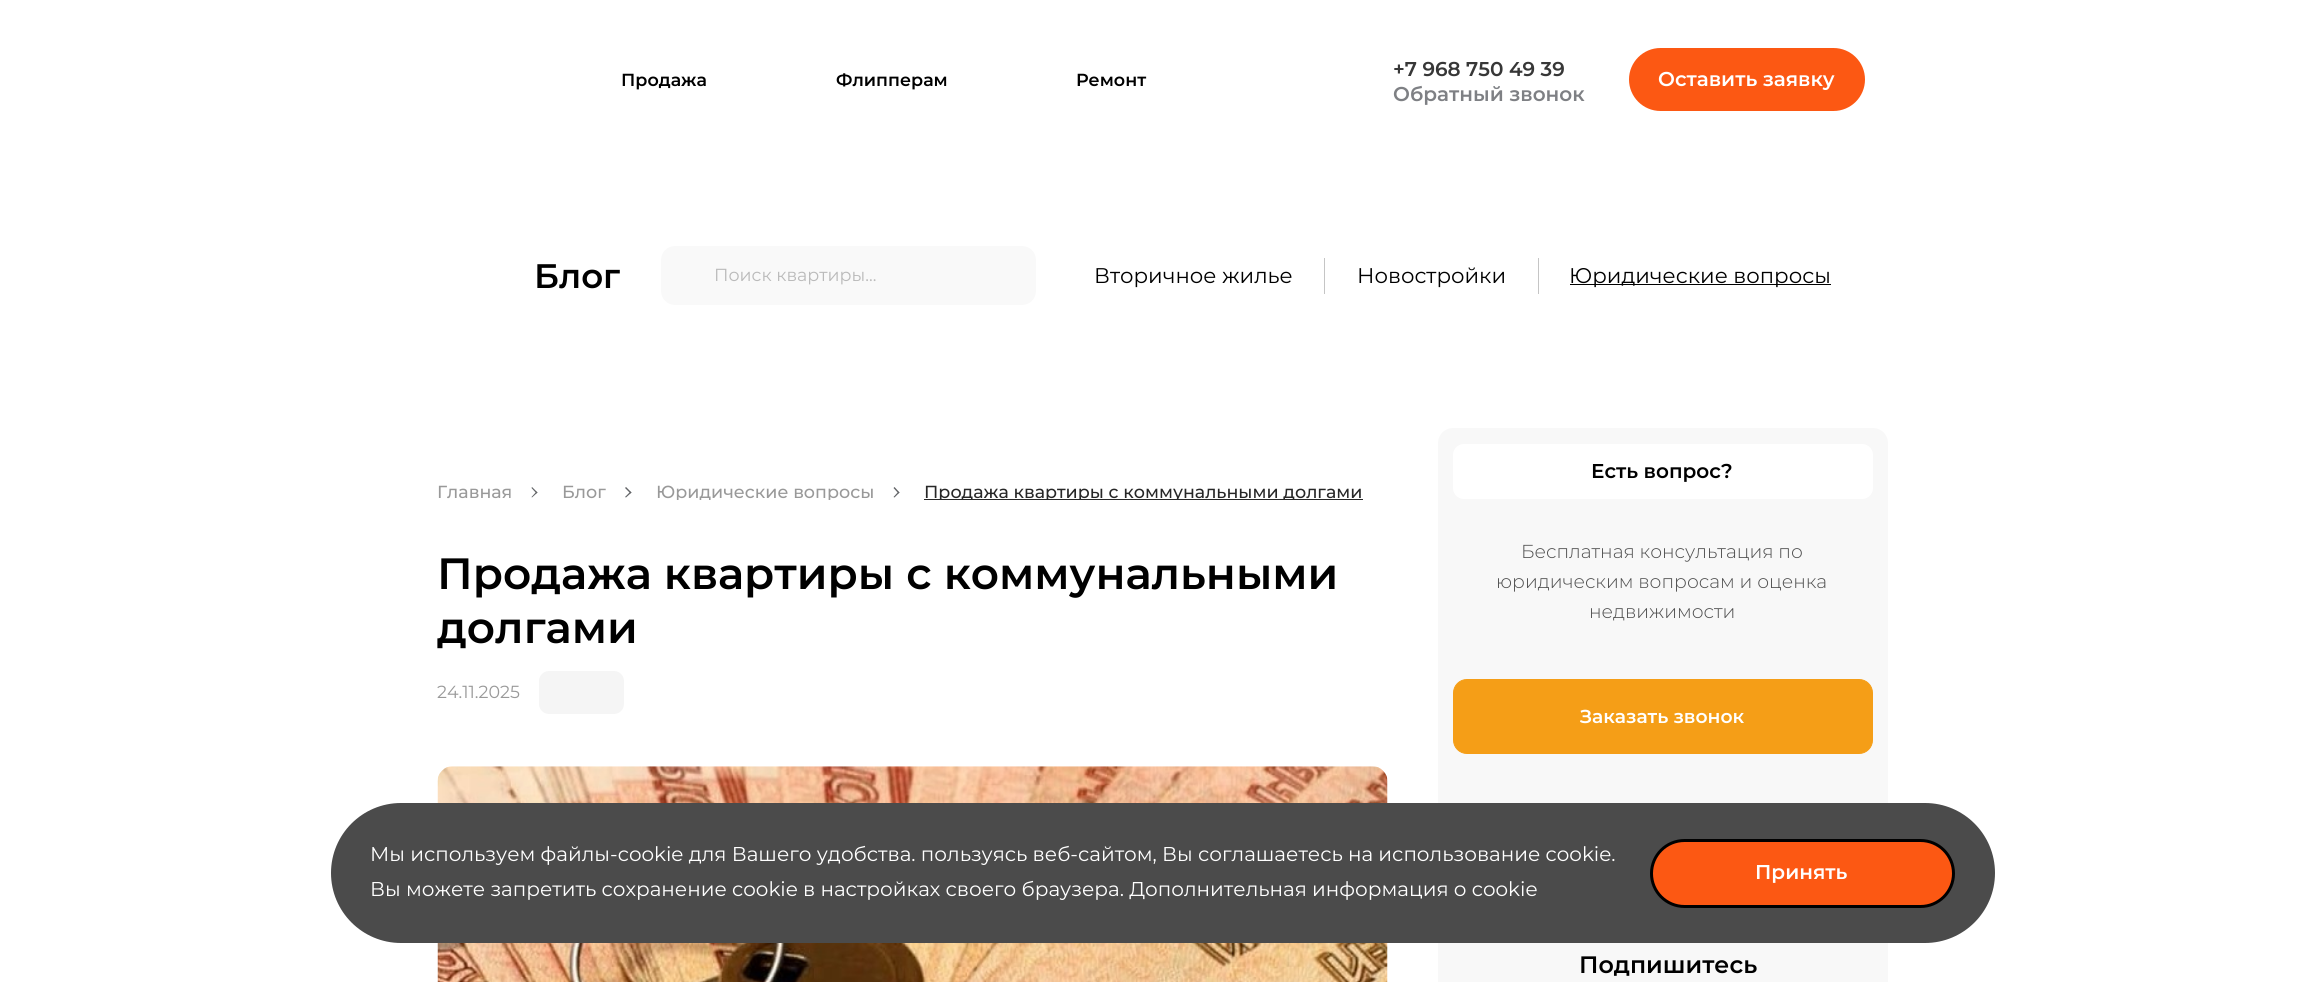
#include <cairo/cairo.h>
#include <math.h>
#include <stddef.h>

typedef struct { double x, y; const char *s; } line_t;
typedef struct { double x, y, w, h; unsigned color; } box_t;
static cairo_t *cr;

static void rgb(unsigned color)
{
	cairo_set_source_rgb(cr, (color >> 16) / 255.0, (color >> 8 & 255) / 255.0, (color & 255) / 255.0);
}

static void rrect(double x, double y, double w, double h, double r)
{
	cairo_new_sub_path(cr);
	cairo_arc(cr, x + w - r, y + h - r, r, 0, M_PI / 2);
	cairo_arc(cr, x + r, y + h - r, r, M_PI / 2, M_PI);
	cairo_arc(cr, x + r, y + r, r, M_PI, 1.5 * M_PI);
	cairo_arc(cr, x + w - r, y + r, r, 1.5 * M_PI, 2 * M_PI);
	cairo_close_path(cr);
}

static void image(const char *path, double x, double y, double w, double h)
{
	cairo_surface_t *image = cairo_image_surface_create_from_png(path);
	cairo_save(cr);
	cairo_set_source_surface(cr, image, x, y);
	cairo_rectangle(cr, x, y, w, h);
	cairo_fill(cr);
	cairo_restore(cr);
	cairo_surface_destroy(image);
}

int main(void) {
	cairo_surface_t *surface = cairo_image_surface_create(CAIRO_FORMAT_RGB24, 2323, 982);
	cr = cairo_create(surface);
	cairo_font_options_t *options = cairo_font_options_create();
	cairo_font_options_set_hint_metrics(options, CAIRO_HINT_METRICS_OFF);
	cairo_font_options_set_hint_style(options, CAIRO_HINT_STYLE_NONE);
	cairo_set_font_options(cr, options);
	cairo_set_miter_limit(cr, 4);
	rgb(0xffffff);
	cairo_paint(cr);
	rgb(0xfc5813);
	rrect(1629, 48, 236, 63, 31.5);
	cairo_fill(cr);
	rgb(0xf9f9f9);
	rrect(661, 246, 375, 59, 14);
	cairo_fill(cr);
	{
		static const box_t items[] = {
			{1324, 258, 1, 36, 0xc5c5c5},
			{1538, 258, 1, 36, 0xc5c5c5},
			{1570, 284, 261, 1, 0x000000},
		};
		for (size_t i = 0; i < sizeof items / sizeof *items; i++) {
			rgb(items[i].color);
			cairo_rectangle(cr, items[i].x, items[i].y, items[i].w, items[i].h);
			cairo_fill(cr);
		}
	}
	rgb(0x616366);
	cairo_new_path(cr);
	cairo_move_to(cr, 532, 487);
	cairo_line_to(cr, 537.5, 492.5);
	cairo_line_to(cr, 536.5, 493.5);
	cairo_line_to(cr, 531.5, 488);
	cairo_close_path(cr);
	cairo_fill(cr);
	cairo_new_path(cr);
	cairo_move_to(cr, 536.5, 491.5);
	cairo_line_to(cr, 537.5, 492.5);
	cairo_line_to(cr, 532, 497.5);
	cairo_line_to(cr, 531.5, 497);
	cairo_close_path(cr);
	cairo_fill(cr);
	cairo_new_path(cr);
	cairo_move_to(cr, 626, 487);
	cairo_line_to(cr, 631.5, 492.5);
	cairo_line_to(cr, 630.5, 493.5);
	cairo_line_to(cr, 625, 488);
	cairo_close_path(cr);
	cairo_fill(cr);
	cairo_new_path(cr);
	cairo_move_to(cr, 630.5, 491.5);
	cairo_line_to(cr, 631.5, 492.5);
	cairo_line_to(cr, 626, 497.5);
	cairo_line_to(cr, 625, 497);
	cairo_close_path(cr);
	cairo_fill(cr);
	cairo_new_path(cr);
	cairo_move_to(cr, 894.5, 487);
	cairo_line_to(cr, 899.5, 492.5);
	cairo_line_to(cr, 898.5, 493.5);
	cairo_line_to(cr, 893.5, 488);
	cairo_close_path(cr);
	cairo_fill(cr);
	cairo_new_path(cr);
	cairo_move_to(cr, 898.5, 491.5);
	cairo_line_to(cr, 899.5, 492.5);
	cairo_line_to(cr, 894.5, 497.5);
	cairo_line_to(cr, 893.5, 497);
	cairo_close_path(cr);
	cairo_fill(cr);
	rgb(0x272727);
	cairo_rectangle(cr, 924, 499, 439, 1);
	cairo_fill(cr);
	rgb(0xf5f5f5);
	rrect(539, 671, 85, 43, 10);
	cairo_fill(cr);
	image("img/1.png", 437, 766, 951, 216);
	rgb(0xf8f8f8);
	rrect(1438, 428, 450, 423, 15);
	cairo_fill(cr);
	rgb(0xffffff);
	rrect(1453, 444, 420, 55, 11);
	cairo_fill(cr);
	rgb(0xf59e17);
	rrect(1453.5, 679.5, 419, 74, 13.5);
	cairo_fill_preserve(cr);
	cairo_set_line_width(cr, 1);
	cairo_stroke(cr);
	rgb(0xf8f8f8);
	cairo_rectangle(cr, 1438, 943, 450, 39);
	cairo_fill(cr);
	rgb(0x4b4b4b);
	rrect(331, 803, 1664, 140, 70);
	cairo_fill(cr);
	rgb(0xfc5813);
	rrect(1651.5, 840.5, 302, 66, 33);
	cairo_fill_preserve(cr);
	rgb(0x000000);
	cairo_set_line_width(cr, 3);
	cairo_stroke(cr);
	cairo_select_font_face(cr, "Montserrat SemiBold", CAIRO_FONT_SLANT_NORMAL, CAIRO_FONT_WEIGHT_NORMAL);
	cairo_set_font_size(cr, 17.5);
	{
		static const line_t items[] = {
			{621, 86, "Продажа"},
			{836, 86, "Флипперам"},
			{1076, 86, "Ремонт"},
		};
		for (size_t i = 0; i < sizeof items / sizeof *items; i++) {
			cairo_move_to(cr, items[i].x, items[i].y);
			cairo_show_text(cr, items[i].s);
		}
	}
	cairo_set_font_size(cr, 20);
	rgb(0x373737);
	cairo_move_to(cr, 1393, 76);
	cairo_show_text(cr, "+7 968 750 49 39");
	rgb(0x7e8084);
	cairo_move_to(cr, 1393, 101);
	cairo_show_text(cr, "Обратный звонок");
	rgb(0xffffff);
	cairo_move_to(cr, 1658, 86);
	cairo_show_text(cr, "Оставить заявку");
	cairo_set_font_size(cr, 34);
	rgb(0x000000);
	cairo_move_to(cr, 534, 288);
	cairo_show_text(cr, "Блог");
	cairo_select_font_face(cr, "Montserrat", CAIRO_FONT_SLANT_NORMAL, CAIRO_FONT_WEIGHT_NORMAL);
	cairo_set_font_size(cr, 17.5);
	rgb(0xbababa);
	cairo_move_to(cr, 714, 281);
	cairo_show_text(cr, "Поиск квартиры...");
	cairo_set_font_size(cr, 21.25);
	rgb(0x000000);
	{
		static const line_t items[] = {
			{1094, 283, "Вторичное жилье"},
			{1357, 283, "Новостройки"},
			{1569, 283, "Юридические вопросы"},
		};
		for (size_t i = 0; i < sizeof items / sizeof *items; i++) {
			cairo_move_to(cr, items[i].x, items[i].y);
			cairo_show_text(cr, items[i].s);
		}
	}
	cairo_select_font_face(cr, "Montserrat Medium", CAIRO_FONT_SLANT_NORMAL, CAIRO_FONT_WEIGHT_NORMAL);
	cairo_set_font_size(cr, 17.5);
	rgb(0x999999);
	cairo_move_to(cr, 437, 498);
	cairo_show_text(cr, "Главная");
	cairo_move_to(cr, 562, 498);
	cairo_show_text(cr, "Блог");
	cairo_save(cr);
	cairo_rectangle(cr, 656, 478, 243, 22);
	cairo_clip(cr);
	cairo_move_to(cr, 656, 498);
	cairo_show_text(cr, "Юридические вопросы");
	cairo_restore(cr);
	cairo_save(cr);
	cairo_rectangle(cr, 924, 478, 439, 22);
	cairo_clip(cr);
	rgb(0x272727);
	cairo_move_to(cr, 924, 498);
	cairo_show_text(cr, "Продажа квартиры с коммунальными долгами");
	cairo_restore(cr);
	cairo_select_font_face(cr, "Montserrat SemiBold", CAIRO_FONT_SLANT_NORMAL, CAIRO_FONT_WEIGHT_NORMAL);
	cairo_set_font_size(cr, 43.75);
	rgb(0x000000);
	cairo_move_to(cr, 437, 589);
	cairo_show_text(cr, "Продажа квартиры с коммунальными");
	cairo_move_to(cr, 437, 643);
	cairo_show_text(cr, "долгами");
	cairo_select_font_face(cr, "Montserrat", CAIRO_FONT_SLANT_NORMAL, CAIRO_FONT_WEIGHT_NORMAL);
	cairo_set_font_size(cr, 17.5);
	rgb(0x999999);
	cairo_move_to(cr, 437, 698);
	cairo_show_text(cr, "24.11.2025");
	cairo_select_font_face(cr, "Montserrat SemiBold", CAIRO_FONT_SLANT_NORMAL, CAIRO_FONT_WEIGHT_NORMAL);
	cairo_set_font_size(cr, 20);
	rgb(0x000000);
	cairo_move_to(cr, 1591, 478);
	cairo_show_text(cr, "Есть вопрос?");
	cairo_select_font_face(cr, "Montserrat Light", CAIRO_FONT_SLANT_NORMAL, CAIRO_FONT_WEIGHT_NORMAL);
	cairo_set_font_size(cr, 18.75);
	rgb(0x4e4e4e);
	{
		static const line_t items[] = {
			{1521, 558, "Бесплатная консультация по"},
			{1496, 588, "юридическим вопросам и оценка"},
			{1589, 618, "недвижимости"},
		};
		for (size_t i = 0; i < sizeof items / sizeof *items; i++) {
			cairo_move_to(cr, items[i].x, items[i].y);
			cairo_show_text(cr, items[i].s);
		}
	}
	cairo_select_font_face(cr, "Montserrat SemiBold", CAIRO_FONT_SLANT_NORMAL, CAIRO_FONT_WEIGHT_NORMAL);
	rgb(0xffffff);
	cairo_move_to(cr, 1580, 723);
	cairo_show_text(cr, "Заказать звонок");
	cairo_set_font_size(cr, 23.75);
	rgb(0x000000);
	cairo_move_to(cr, 1579, 973);
	cairo_show_text(cr, "Подпишитесь");
	cairo_select_font_face(cr, "Montserrat", CAIRO_FONT_SLANT_NORMAL, CAIRO_FONT_WEIGHT_NORMAL);
	cairo_set_font_size(cr, 20);
	rgb(0xffffff);
	cairo_move_to(cr, 370, 861);
	cairo_show_text(cr, "Мы используем файлы-cookie для Вашего удобства. пользуясь веб-сайтом, Вы соглашаетесь на использование cookie.");
	cairo_move_to(cr, 370, 896);
	cairo_show_text(cr, "Вы можете запретить сохранение cookie в настройках своего браузера. Дополнительная информация о cookie");
	cairo_select_font_face(cr, "Montserrat SemiBold", CAIRO_FONT_SLANT_NORMAL, CAIRO_FONT_WEIGHT_NORMAL);
	cairo_move_to(cr, 1755, 879);
	cairo_show_text(cr, "Принять");
	cairo_surface_write_to_png(surface, "page.png");
	cairo_font_options_destroy(options);
	cairo_destroy(cr);
	cairo_surface_destroy(surface);
	return 0;
}
